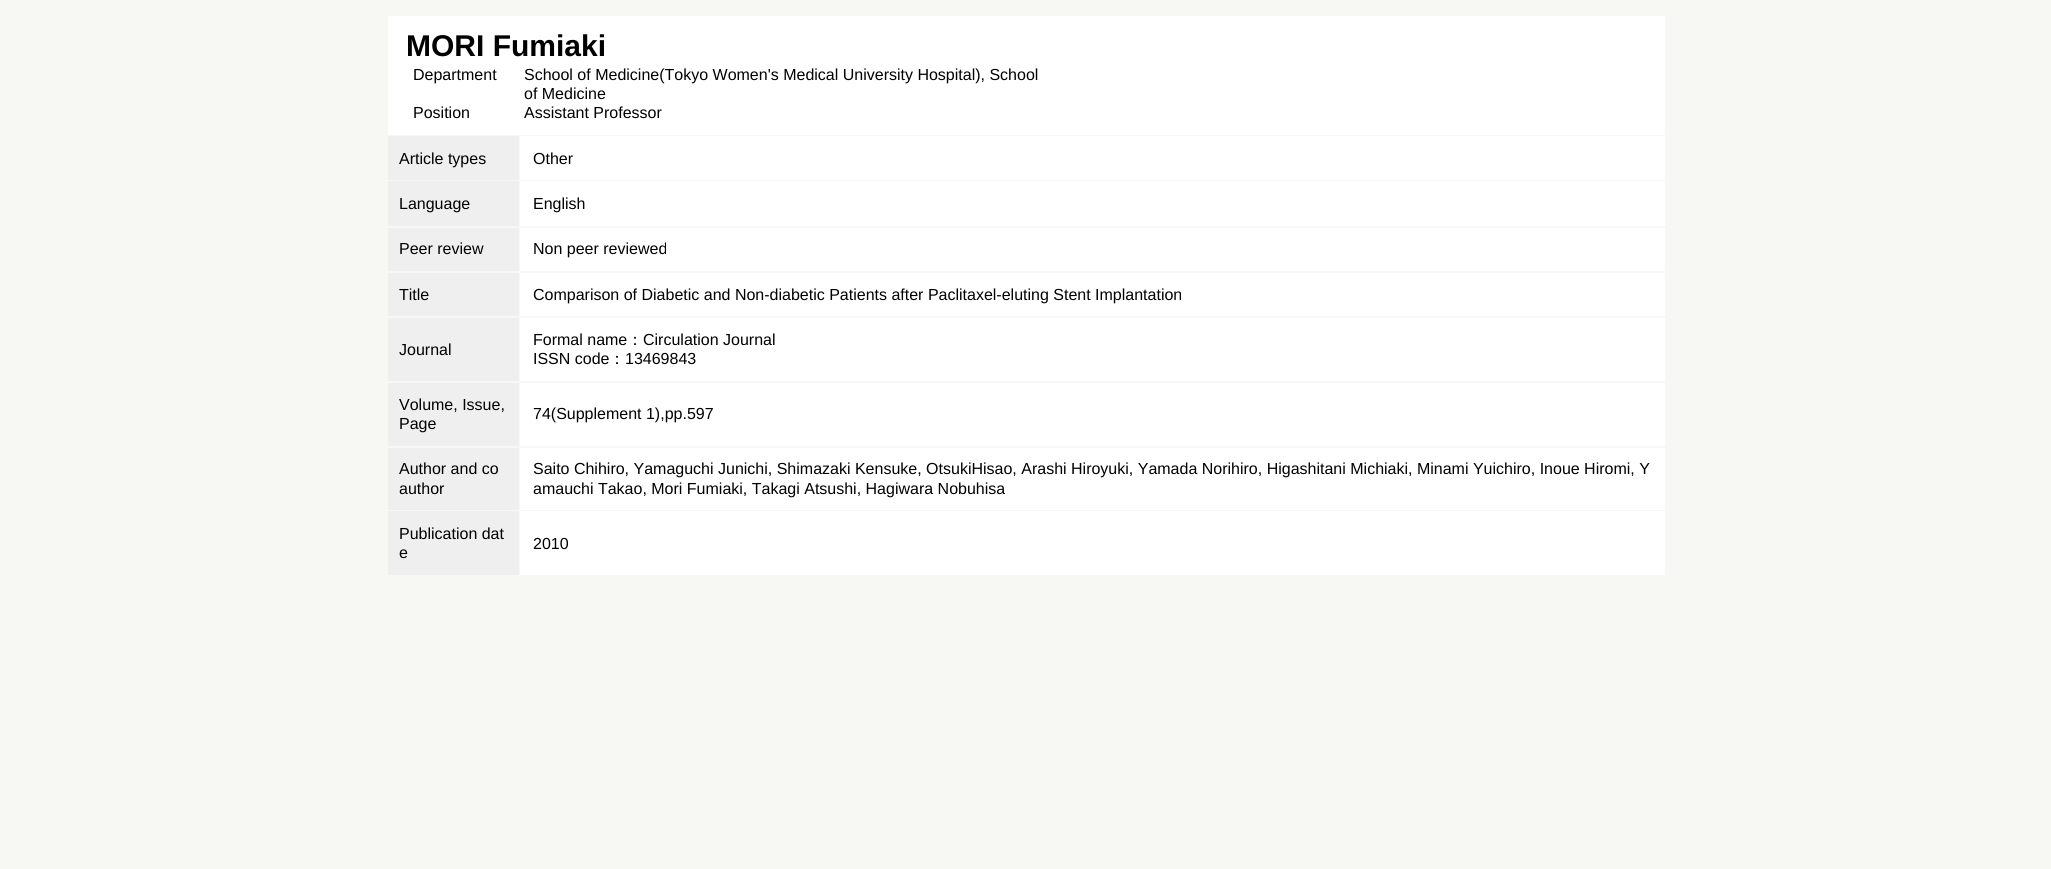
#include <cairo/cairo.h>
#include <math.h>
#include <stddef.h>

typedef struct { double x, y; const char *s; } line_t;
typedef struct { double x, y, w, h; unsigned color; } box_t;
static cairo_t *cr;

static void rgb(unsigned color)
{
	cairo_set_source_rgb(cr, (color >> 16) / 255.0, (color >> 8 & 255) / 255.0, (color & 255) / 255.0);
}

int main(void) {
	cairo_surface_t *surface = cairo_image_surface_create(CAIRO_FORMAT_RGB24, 2051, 869);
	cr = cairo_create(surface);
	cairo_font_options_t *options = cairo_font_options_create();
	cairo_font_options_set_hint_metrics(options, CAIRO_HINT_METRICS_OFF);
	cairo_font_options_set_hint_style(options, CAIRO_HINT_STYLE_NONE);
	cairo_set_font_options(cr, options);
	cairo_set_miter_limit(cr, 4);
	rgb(0xf7f8f3);
	cairo_paint(cr);
	{
		static const box_t items[] = {
			{388, 16, 1277, 119, 0xffffff},
			{388, 136, 131, 44, 0xefefef},
			{520, 136, 1145, 44, 0xffffff},
			{388, 181, 131, 45, 0xefefef},
			{520, 181, 1145, 45, 0xffffff},
			{388, 228, 131, 43, 0xefefef},
			{520, 228, 1145, 43, 0xffffff},
			{388, 273, 131, 43, 0xefefef},
			{520, 273, 1145, 43, 0xffffff},
			{388, 318, 131, 63, 0xefefef},
			{520, 318, 1145, 63, 0xffffff},
			{388, 383, 131, 63, 0xefefef},
			{520, 383, 1145, 63, 0xffffff},
			{388, 448, 131, 62, 0xefefef},
			{520, 448, 1145, 62, 0xffffff},
			{388, 511, 131, 64, 0xefefef},
			{520, 511, 1145, 64, 0xffffff},
		};
		for (size_t i = 0; i < sizeof items / sizeof *items; i++) {
			rgb(items[i].color);
			cairo_rectangle(cr, items[i].x, items[i].y, items[i].w, items[i].h);
			cairo_fill(cr);
		}
	}
	cairo_select_font_face(cr, "Liberation Sans", CAIRO_FONT_SLANT_NORMAL, CAIRO_FONT_WEIGHT_BOLD);
	cairo_set_font_size(cr, 30);
	rgb(0x000000);
	cairo_move_to(cr, 406, 56);
	cairo_show_text(cr, "MORI Fumiaki");
	cairo_select_font_face(cr, "Liberation Sans", CAIRO_FONT_SLANT_NORMAL, CAIRO_FONT_WEIGHT_NORMAL);
	cairo_set_font_size(cr, 16);
	{
		static const line_t items[] = {
			{413, 80, "Department"},
			{524, 80, "School of Medicine(Tokyo Women's Medical University Hospital), School"},
			{524, 99, "of Medicine"},
			{413, 118, "Position"},
			{524, 118, "Assistant Professor"},
			{399, 164, "Article types"},
			{533, 164, "Other"},
			{399, 209, "Language"},
			{533, 209, "English"},
			{399, 254, "Peer review"},
			{533, 254, "Non peer reviewed"},
			{399, 300, "Title"},
			{533, 300, "Comparison of Diabetic and Non-diabetic Patients after Paclitaxel-eluting Stent Implantation"},
			{399, 355, "Journal"},
			{533, 345, "Formal name"},
		};
		for (size_t i = 0; i < sizeof items / sizeof *items; i++) {
			cairo_move_to(cr, items[i].x, items[i].y);
			cairo_show_text(cr, items[i].s);
		}
	}
	cairo_select_font_face(cr, "WenQuanYi Zen Hei Medium", CAIRO_FONT_SLANT_NORMAL, CAIRO_FONT_WEIGHT_NORMAL);
	cairo_move_to(cr, 627, 345);
	cairo_show_text(cr, "：");
	cairo_select_font_face(cr, "Liberation Sans", CAIRO_FONT_SLANT_NORMAL, CAIRO_FONT_WEIGHT_NORMAL);
	cairo_move_to(cr, 643, 345);
	cairo_show_text(cr, "Circulation Journal");
	cairo_move_to(cr, 533, 364);
	cairo_show_text(cr, "ISSN code");
	cairo_select_font_face(cr, "WenQuanYi Zen Hei Medium", CAIRO_FONT_SLANT_NORMAL, CAIRO_FONT_WEIGHT_NORMAL);
	cairo_move_to(cr, 609, 364);
	cairo_show_text(cr, "：");
	cairo_select_font_face(cr, "Liberation Sans", CAIRO_FONT_SLANT_NORMAL, CAIRO_FONT_WEIGHT_NORMAL);
	{
		static const line_t items[] = {
			{625, 364, "13469843"},
			{399, 410, "Volume, Issue,"},
			{399, 429, "Page"},
			{533, 419, "74(Supplement 1),pp.597"},
			{399, 474, "Author and co"},
			{399, 494, "author"},
			{533, 474, "Saito Chihiro, Yamaguchi Junichi, Shimazaki Kensuke, OtsukiHisao, Arashi Hiroyuki, Yamada Norihiro, Higashitani Michiaki, Minami Yuichiro, Inoue Hiromi, Y"},
			{533, 494, "amauchi Takao, Mori Fumiaki, Takagi Atsushi, Hagiwara Nobuhisa"},
			{399, 539, "Publication dat"},
			{399, 558, "e"},
			{533, 549, "2010"},
		};
		for (size_t i = 0; i < sizeof items / sizeof *items; i++) {
			cairo_move_to(cr, items[i].x, items[i].y);
			cairo_show_text(cr, items[i].s);
		}
	}
	cairo_surface_write_to_png(surface, "page.png");
	cairo_font_options_destroy(options);
	cairo_destroy(cr);
	cairo_surface_destroy(surface);
	return 0;
}
